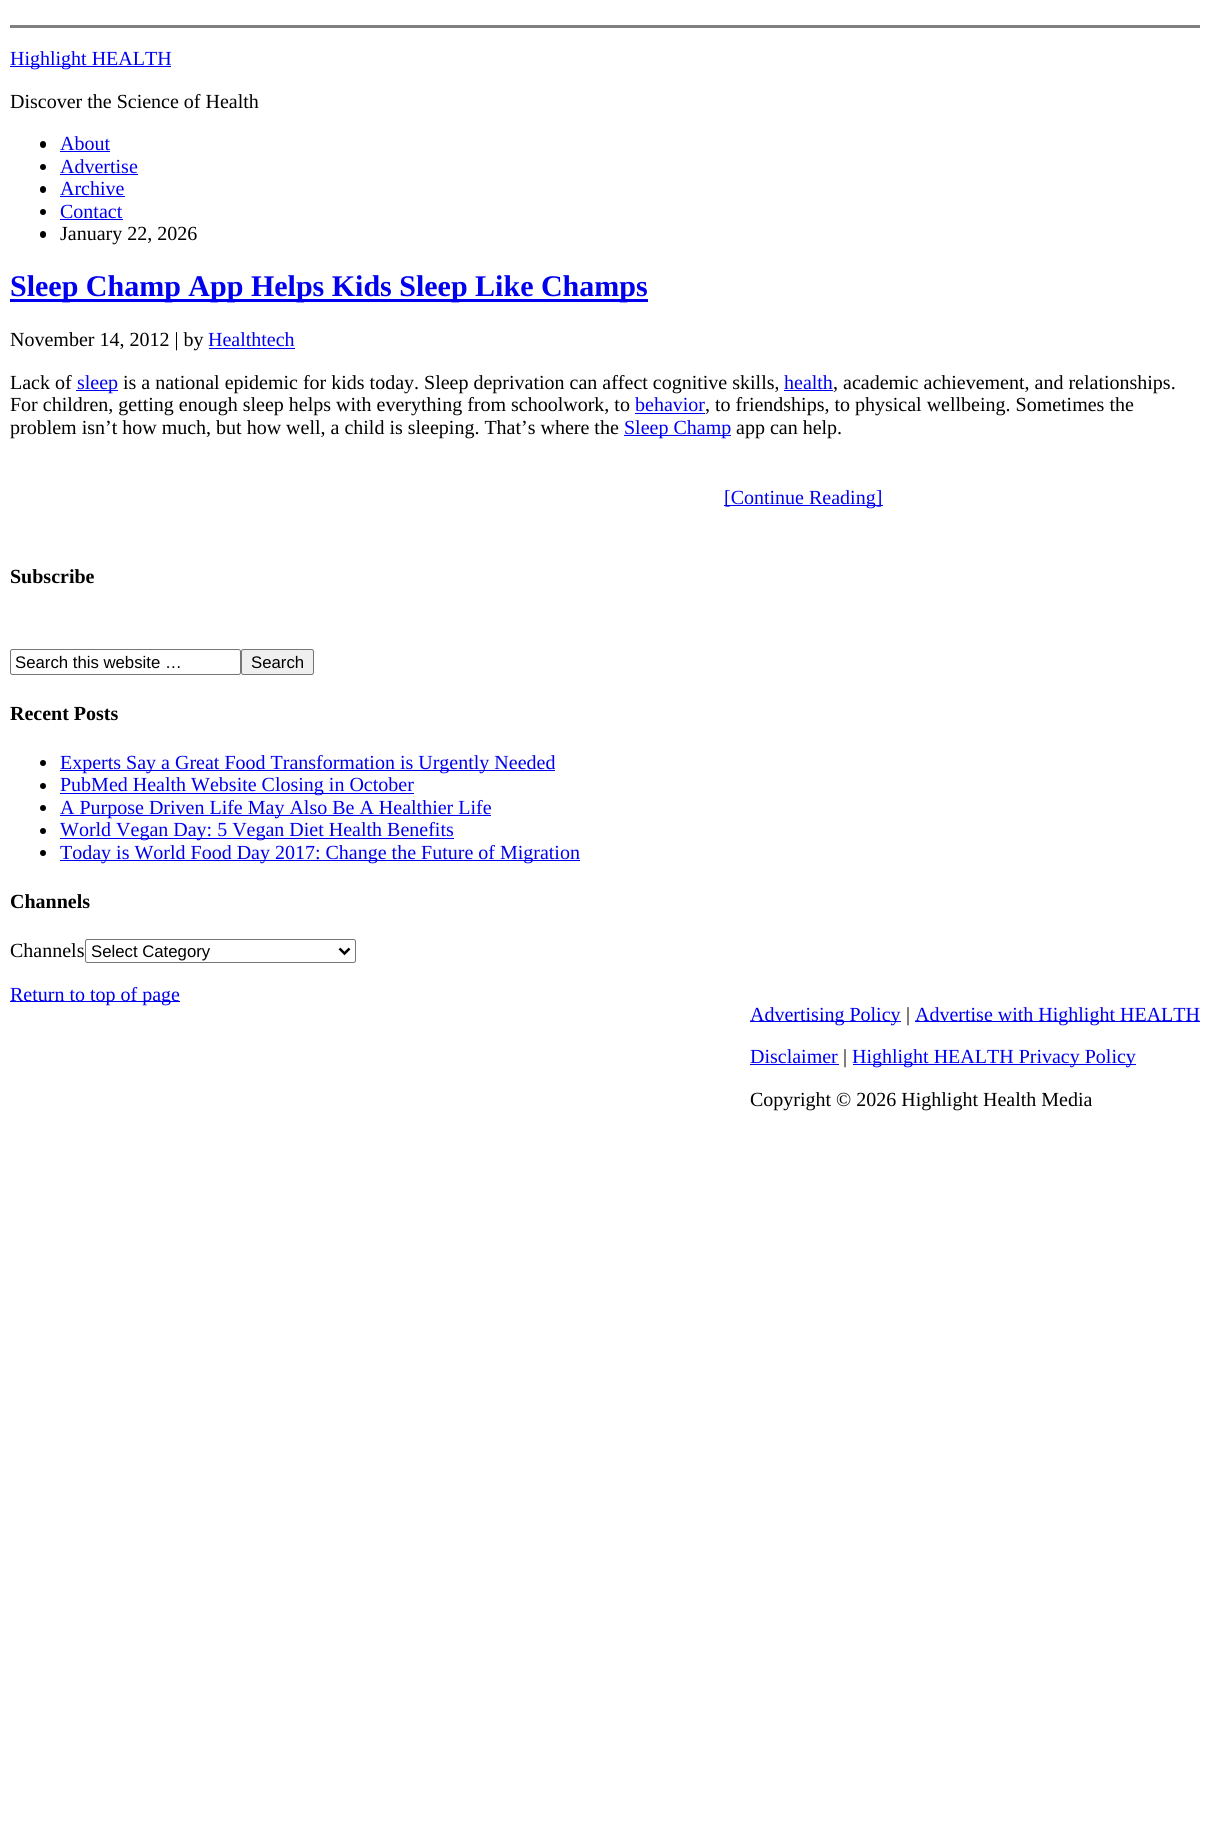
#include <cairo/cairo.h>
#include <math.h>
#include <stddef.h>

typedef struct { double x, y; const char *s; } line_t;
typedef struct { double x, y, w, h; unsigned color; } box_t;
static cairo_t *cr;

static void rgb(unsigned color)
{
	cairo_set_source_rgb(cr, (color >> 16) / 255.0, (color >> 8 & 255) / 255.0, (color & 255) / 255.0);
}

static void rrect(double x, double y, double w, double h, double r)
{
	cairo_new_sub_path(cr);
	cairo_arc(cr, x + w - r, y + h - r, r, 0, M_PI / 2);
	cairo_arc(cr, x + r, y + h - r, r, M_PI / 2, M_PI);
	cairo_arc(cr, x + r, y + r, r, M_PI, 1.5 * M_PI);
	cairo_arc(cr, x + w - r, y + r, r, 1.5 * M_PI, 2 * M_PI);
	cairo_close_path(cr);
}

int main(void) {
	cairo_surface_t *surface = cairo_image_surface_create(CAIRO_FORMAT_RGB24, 1210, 1840);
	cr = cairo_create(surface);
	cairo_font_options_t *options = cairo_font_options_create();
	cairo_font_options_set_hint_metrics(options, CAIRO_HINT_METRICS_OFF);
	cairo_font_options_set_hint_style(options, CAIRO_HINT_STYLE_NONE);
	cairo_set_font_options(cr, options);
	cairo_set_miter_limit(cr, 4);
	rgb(0xffffff);
	cairo_paint(cr);
	rgb(0x808080);
	cairo_rectangle(cr, 10, 25, 1190, 3);
	cairo_fill(cr);
	rgb(0x0000ee);
	cairo_rectangle(cr, 10, 66, 161, 1);
	cairo_fill(cr);
	rgb(0x000000);
	rrect(40, 141, 6, 7, 3);
	cairo_fill(cr);
	rgb(0x0000ee);
	cairo_rectangle(cr, 60, 151, 50, 1);
	cairo_fill(cr);
	rgb(0x000000);
	cairo_arc(cr, 43, 167, 3, 0, 2 * M_PI);
	cairo_fill(cr);
	rgb(0x0000ee);
	cairo_rectangle(cr, 60, 174, 78, 1);
	cairo_fill(cr);
	rgb(0x000000);
	rrect(40, 186, 6, 7, 3);
	cairo_fill(cr);
	rgb(0x0000ee);
	cairo_rectangle(cr, 60, 196, 65, 1);
	cairo_fill(cr);
	rgb(0x000000);
	cairo_arc(cr, 43, 212, 3, 0, 2 * M_PI);
	cairo_fill(cr);
	rgb(0x0000ee);
	cairo_rectangle(cr, 60, 219, 63, 1);
	cairo_fill(cr);
	rgb(0x000000);
	rrect(40, 231, 6, 7, 3);
	cairo_fill(cr);
	{
		static const box_t items[] = {
			{10, 299, 638, 3, 0x0000ee},
			{209, 348, 86, 1, 0x0000ee},
			{76, 390, 42, 1, 0x0000ee},
			{784, 390, 49, 1, 0x0000ee},
			{635, 413, 70, 1, 0x0000ee},
			{624, 435, 107, 1, 0x0000ee},
			{724, 505, 159, 1, 0x0000ee},
		};
		for (size_t i = 0; i < sizeof items / sizeof *items; i++) {
			rgb(items[i].color);
			cairo_rectangle(cr, items[i].x, items[i].y, items[i].w, items[i].h);
			cairo_fill(cr);
		}
	}
	rrect(10.5, 649.5, 230, 25, 2);
	rgb(0x767676);
	cairo_set_line_width(cr, 1);
	cairo_stroke(cr);
	rgb(0xefefef);
	rrect(241.5, 649.5, 72, 25, 2);
	cairo_fill_preserve(cr);
	rgb(0x767676);
	cairo_stroke(cr);
	rgb(0x000000);
	cairo_arc(cr, 43, 763, 3, 0, 2 * M_PI);
	cairo_fill(cr);
	rgb(0x0000ee);
	cairo_rectangle(cr, 60, 770, 495, 1);
	cairo_fill(cr);
	rgb(0x000000);
	cairo_arc(cr, 43, 786, 3, 0, 2 * M_PI);
	cairo_fill(cr);
	rgb(0x0000ee);
	cairo_rectangle(cr, 60, 793, 354, 1);
	cairo_fill(cr);
	rgb(0x000000);
	cairo_arc(cr, 43, 808, 3, 0, 2 * M_PI);
	cairo_fill(cr);
	rgb(0x0000ee);
	cairo_rectangle(cr, 60, 815, 431, 1);
	cairo_fill(cr);
	rgb(0x000000);
	cairo_arc(cr, 43, 831, 3, 0, 2 * M_PI);
	cairo_fill(cr);
	rgb(0x0000ee);
	cairo_rectangle(cr, 60, 838, 394, 1);
	cairo_fill(cr);
	rgb(0x000000);
	cairo_arc(cr, 43, 853, 3, 0, 2 * M_PI);
	cairo_fill(cr);
	rgb(0x0000ee);
	cairo_rectangle(cr, 60, 860, 520, 1);
	cairo_fill(cr);
	rrect(85.5, 939.5, 270, 23, 2);
	rgb(0x767676);
	cairo_stroke(cr);
	cairo_new_path(cr);
	cairo_move_to(cr, 339.5, 948.5);
	cairo_line_to(cr, 344.5, 953.5);
	cairo_line_to(cr, 349.5, 948.5);
	rgb(0x000000);
	cairo_set_line_width(cr, 2.5);
	cairo_stroke(cr);
	{
		static const box_t items[] = {
			{10, 1001, 170, 1, 0x0000ee},
			{750, 1021, 151, 1, 0x0000ee},
			{915, 1021, 285, 1, 0x0000ee},
			{750, 1064, 89, 1, 0x0000ee},
			{853, 1064, 283, 1, 0x0000ee},
		};
		for (size_t i = 0; i < sizeof items / sizeof *items; i++) {
			rgb(items[i].color);
			cairo_rectangle(cr, items[i].x, items[i].y, items[i].w, items[i].h);
			cairo_fill(cr);
		}
	}
	cairo_select_font_face(cr, "Liberation Serif", CAIRO_FONT_SLANT_NORMAL, CAIRO_FONT_WEIGHT_NORMAL);
	cairo_set_font_size(cr, 20);
	cairo_move_to(cr, 10, 65);
	cairo_show_text(cr, "Highlight HEALTH");
	rgb(0x000000);
	cairo_move_to(cr, 10, 108);
	cairo_show_text(cr, "Discover the Science of Health");
	rgb(0x0000ee);
	{
		static const line_t items[] = {
			{60, 150, "About"},
			{60, 173, "Advertise"},
			{60, 195, "Archive"},
			{60, 218, "Contact"},
		};
		for (size_t i = 0; i < sizeof items / sizeof *items; i++) {
			cairo_move_to(cr, items[i].x, items[i].y);
			cairo_show_text(cr, items[i].s);
		}
	}
	rgb(0x000000);
	cairo_move_to(cr, 60, 240);
	cairo_show_text(cr, "January 22, 2026");
	cairo_select_font_face(cr, "Liberation Serif", CAIRO_FONT_SLANT_NORMAL, CAIRO_FONT_WEIGHT_BOLD);
	cairo_set_font_size(cr, 30);
	rgb(0x0000ee);
	cairo_move_to(cr, 10, 296);
	cairo_show_text(cr, "Sleep Champ App Helps Kids Sleep Like Champs");
	cairo_select_font_face(cr, "Liberation Serif", CAIRO_FONT_SLANT_NORMAL, CAIRO_FONT_WEIGHT_NORMAL);
	cairo_set_font_size(cr, 20);
	rgb(0x000000);
	cairo_move_to(cr, 10, 346);
	cairo_show_text(cr, "November 14, 2012 | by");
	rgb(0x0000ee);
	cairo_move_to(cr, 208, 346);
	cairo_show_text(cr, "Healthtech");
	rgb(0x000000);
	cairo_move_to(cr, 10, 389);
	cairo_show_text(cr, "Lack of");
	rgb(0x0000ee);
	cairo_move_to(cr, 77, 389);
	cairo_show_text(cr, "sleep");
	rgb(0x000000);
	cairo_move_to(cr, 123, 389);
	cairo_show_text(cr, "is a national epidemic for kids today. Sleep deprivation can affect cognitive skills,");
	rgb(0x0000ee);
	cairo_move_to(cr, 784, 389);
	cairo_show_text(cr, "health");
	rgb(0x000000);
	cairo_move_to(cr, 833, 389);
	cairo_show_text(cr, ", academic achievement, and relationships.");
	cairo_move_to(cr, 10, 411);
	cairo_show_text(cr, "For children, getting enough sleep helps with everything from schoolwork, to");
	rgb(0x0000ee);
	cairo_move_to(cr, 635, 411);
	cairo_show_text(cr, "behavior");
	rgb(0x000000);
	cairo_move_to(cr, 705, 411);
	cairo_show_text(cr, ", to friendships, to physical wellbeing. Sometimes the");
	cairo_move_to(cr, 10, 434);
	cairo_show_text(cr, "problem isn’t how much, but how well, a child is sleeping. That’s where the");
	rgb(0x0000ee);
	cairo_move_to(cr, 624, 434);
	cairo_show_text(cr, "Sleep Champ");
	rgb(0x000000);
	cairo_move_to(cr, 736, 434);
	cairo_show_text(cr, "app can help.");
	rgb(0x0000ee);
	cairo_move_to(cr, 724, 504);
	cairo_show_text(cr, "[Continue Reading]");
	cairo_select_font_face(cr, "Liberation Serif", CAIRO_FONT_SLANT_NORMAL, CAIRO_FONT_WEIGHT_BOLD);
	rgb(0x000000);
	cairo_move_to(cr, 10, 583);
	cairo_show_text(cr, "Subscribe");
	cairo_select_font_face(cr, "Liberation Sans", CAIRO_FONT_SLANT_NORMAL, CAIRO_FONT_WEIGHT_NORMAL);
	cairo_set_font_size(cr, 16.75);
	cairo_move_to(cr, 15, 668);
	cairo_show_text(cr, "Search this website …");
	cairo_move_to(cr, 251, 668);
	cairo_show_text(cr, "Search");
	cairo_select_font_face(cr, "Liberation Serif", CAIRO_FONT_SLANT_NORMAL, CAIRO_FONT_WEIGHT_BOLD);
	cairo_set_font_size(cr, 20);
	cairo_move_to(cr, 10, 720);
	cairo_show_text(cr, "Recent Posts");
	cairo_select_font_face(cr, "Liberation Serif", CAIRO_FONT_SLANT_NORMAL, CAIRO_FONT_WEIGHT_NORMAL);
	rgb(0x0000ee);
	{
		static const line_t items[] = {
			{60, 769, "Experts Say a Great Food Transformation is Urgently Needed"},
			{60, 791, "PubMed Health Website Closing in October"},
			{60, 814, "A Purpose Driven Life May Also Be A Healthier Life"},
			{60, 836, "World Vegan Day: 5 Vegan Diet Health Benefits"},
			{60, 859, "Today is World Food Day 2017: Change the Future of Migration"},
		};
		for (size_t i = 0; i < sizeof items / sizeof *items; i++) {
			cairo_move_to(cr, items[i].x, items[i].y);
			cairo_show_text(cr, items[i].s);
		}
	}
	cairo_select_font_face(cr, "Liberation Serif", CAIRO_FONT_SLANT_NORMAL, CAIRO_FONT_WEIGHT_BOLD);
	rgb(0x000000);
	cairo_move_to(cr, 10, 908);
	cairo_show_text(cr, "Channels");
	cairo_select_font_face(cr, "Liberation Serif", CAIRO_FONT_SLANT_NORMAL, CAIRO_FONT_WEIGHT_NORMAL);
	cairo_move_to(cr, 10, 957);
	cairo_show_text(cr, "Channels");
	cairo_select_font_face(cr, "Liberation Sans", CAIRO_FONT_SLANT_NORMAL, CAIRO_FONT_WEIGHT_NORMAL);
	cairo_set_font_size(cr, 16.75);
	cairo_move_to(cr, 91, 957);
	cairo_show_text(cr, "Select Category");
	cairo_select_font_face(cr, "Liberation Serif", CAIRO_FONT_SLANT_NORMAL, CAIRO_FONT_WEIGHT_NORMAL);
	cairo_set_font_size(cr, 20);
	rgb(0x0000ee);
	cairo_move_to(cr, 10, 1001);
	cairo_show_text(cr, "Return to top of page");
	cairo_move_to(cr, 750, 1021);
	cairo_show_text(cr, "Advertising Policy");
	rgb(0x000000);
	cairo_move_to(cr, 906, 1021);
	cairo_show_text(cr, "|");
	rgb(0x0000ee);
	cairo_move_to(cr, 915, 1021);
	cairo_show_text(cr, "Advertise with Highlight HEALTH");
	cairo_move_to(cr, 750, 1063);
	cairo_show_text(cr, "Disclaimer");
	rgb(0x000000);
	cairo_move_to(cr, 843, 1063);
	cairo_show_text(cr, "|");
	rgb(0x0000ee);
	cairo_move_to(cr, 852, 1063);
	cairo_show_text(cr, "Highlight HEALTH Privacy Policy");
	rgb(0x000000);
	cairo_move_to(cr, 750, 1106);
	cairo_show_text(cr, "Copyright © 2026 Highlight Health Media");
	cairo_surface_write_to_png(surface, "page.png");
	cairo_font_options_destroy(options);
	cairo_destroy(cr);
	cairo_surface_destroy(surface);
	return 0;
}
